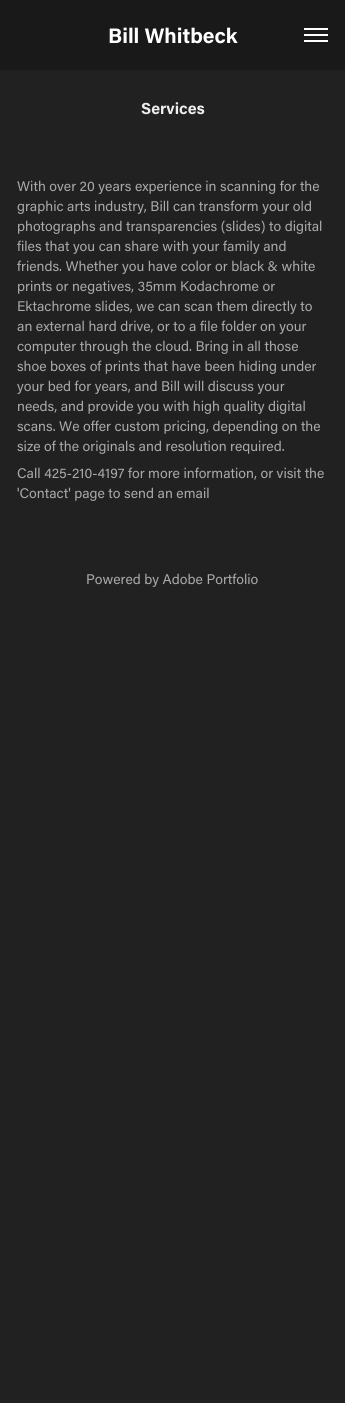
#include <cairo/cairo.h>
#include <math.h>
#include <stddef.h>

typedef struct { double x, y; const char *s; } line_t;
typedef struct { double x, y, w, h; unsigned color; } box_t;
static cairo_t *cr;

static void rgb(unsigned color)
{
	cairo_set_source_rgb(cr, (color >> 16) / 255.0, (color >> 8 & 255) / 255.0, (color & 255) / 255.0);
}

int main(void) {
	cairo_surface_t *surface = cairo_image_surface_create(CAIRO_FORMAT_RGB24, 345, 1403);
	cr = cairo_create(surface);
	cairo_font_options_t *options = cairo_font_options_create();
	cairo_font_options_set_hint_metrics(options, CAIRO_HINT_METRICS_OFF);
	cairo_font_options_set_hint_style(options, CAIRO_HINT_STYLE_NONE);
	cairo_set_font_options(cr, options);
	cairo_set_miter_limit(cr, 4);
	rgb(0x212121);
	cairo_paint(cr);
	{
		static const box_t items[] = {
			{0, 0, 345, 70, 0x191919},
			{304, 28, 24, 2, 0xffffff},
			{304, 34, 24, 2, 0xffffff},
			{304, 40, 24, 2, 0xffffff},
		};
		for (size_t i = 0; i < sizeof items / sizeof *items; i++) {
			rgb(items[i].color);
			cairo_rectangle(cr, items[i].x, items[i].y, items[i].w, items[i].h);
			cairo_fill(cr);
		}
	}
	cairo_select_font_face(cr, "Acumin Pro", CAIRO_FONT_SLANT_NORMAL, CAIRO_FONT_WEIGHT_BOLD);
	cairo_set_font_size(cr, 21);
	cairo_move_to(cr, 108, 43);
	cairo_show_text(cr, "Bill Whitbeck");
	cairo_set_font_size(cr, 16);
	rgb(0xeeeeee);
	cairo_move_to(cr, 141, 114);
	cairo_show_text(cr, "Services");
	cairo_select_font_face(cr, "Acumin Pro", CAIRO_FONT_SLANT_NORMAL, CAIRO_FONT_WEIGHT_NORMAL);
	cairo_set_font_size(cr, 14);
	rgb(0xa9a9a9);
	{
		static const line_t items[] = {
			{17, 191, "With over 20 years experience in scanning for the"},
			{17, 211, "graphic arts industry, Bill can transform your old"},
			{17, 231, "photographs and transparencies (slides) to digital"},
			{17, 251, "files that you can share with your family and"},
			{17, 271, "friends. Whether you have color or black & white"},
			{17, 291, "prints or negatives, 35mm Kodachrome or"},
			{17, 311, "Ektachrome slides, we can scan them directly to"},
			{17, 331, "an external hard drive, or to a file folder on your"},
			{17, 351, "computer through the cloud. Bring in all those"},
			{17, 371, "shoe boxes of prints that have been hiding under"},
			{17, 391, "your bed for years, and Bill will discuss your"},
			{17, 411, "needs, and provide you with high quality digital"},
			{17, 431, "scans. We offer custom pricing, depending on the"},
			{17, 451, "size of the originals and resolution required."},
			{17, 478, "Call 425-210-4197 for more information, or visit the"},
			{17, 498, "'Contact' page to send an email"},
			{86, 584, "Powered by Adobe Portfolio"},
		};
		for (size_t i = 0; i < sizeof items / sizeof *items; i++) {
			cairo_move_to(cr, items[i].x, items[i].y);
			cairo_show_text(cr, items[i].s);
		}
	}
	cairo_surface_write_to_png(surface, "page.png");
	cairo_font_options_destroy(options);
	cairo_destroy(cr);
	cairo_surface_destroy(surface);
	return 0;
}
